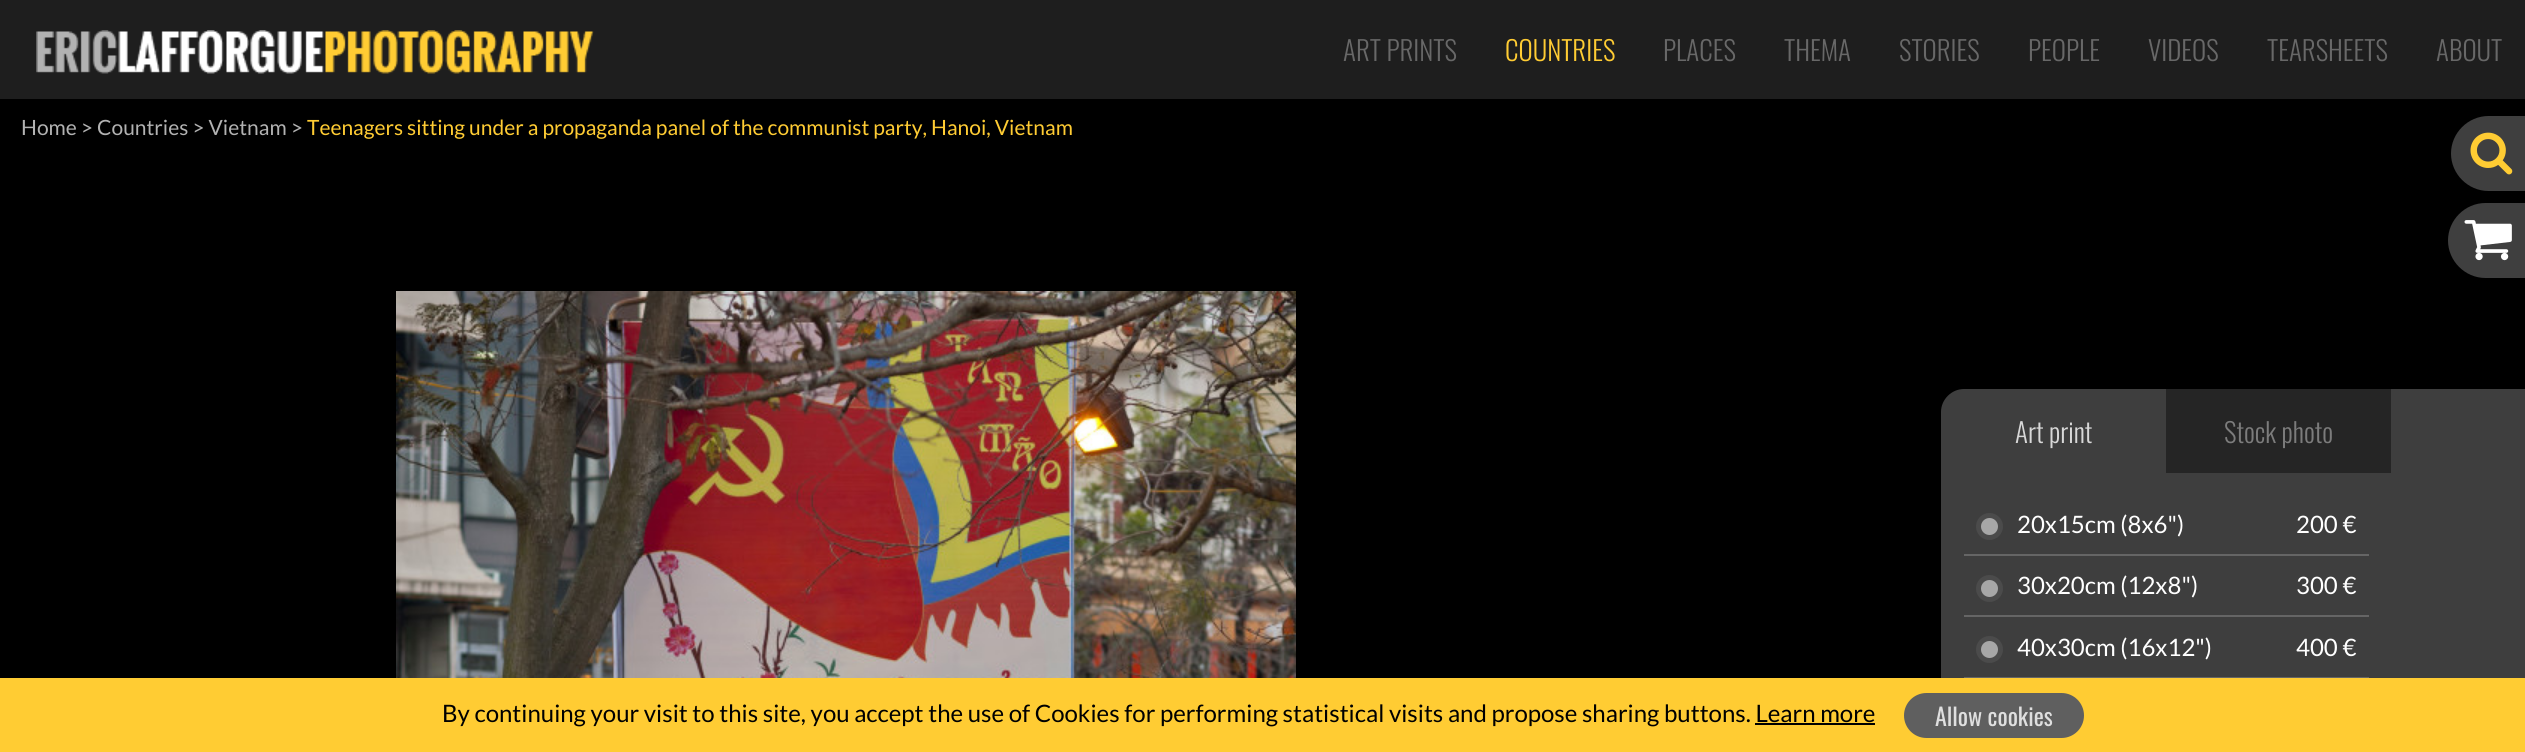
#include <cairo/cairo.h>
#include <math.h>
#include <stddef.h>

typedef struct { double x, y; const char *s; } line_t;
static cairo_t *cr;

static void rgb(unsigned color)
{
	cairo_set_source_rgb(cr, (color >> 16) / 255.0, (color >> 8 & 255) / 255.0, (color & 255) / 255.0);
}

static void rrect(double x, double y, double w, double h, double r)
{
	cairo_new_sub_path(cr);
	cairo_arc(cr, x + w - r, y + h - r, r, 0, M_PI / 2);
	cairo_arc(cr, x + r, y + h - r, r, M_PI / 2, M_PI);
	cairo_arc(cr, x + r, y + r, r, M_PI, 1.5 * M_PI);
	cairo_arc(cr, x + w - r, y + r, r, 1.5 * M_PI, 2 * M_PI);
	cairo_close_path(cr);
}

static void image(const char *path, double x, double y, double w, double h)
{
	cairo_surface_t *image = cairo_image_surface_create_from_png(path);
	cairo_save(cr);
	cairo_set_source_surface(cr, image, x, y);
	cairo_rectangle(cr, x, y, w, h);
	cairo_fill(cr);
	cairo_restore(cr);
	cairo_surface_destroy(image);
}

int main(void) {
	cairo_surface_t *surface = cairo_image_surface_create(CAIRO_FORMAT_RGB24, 2525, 752);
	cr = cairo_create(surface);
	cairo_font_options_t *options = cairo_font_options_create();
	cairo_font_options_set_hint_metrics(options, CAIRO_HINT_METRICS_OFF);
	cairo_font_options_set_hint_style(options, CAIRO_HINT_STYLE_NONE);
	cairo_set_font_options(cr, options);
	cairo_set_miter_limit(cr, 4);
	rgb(0x000000);
	cairo_paint(cr);
	rgb(0x1e1e1e);
	cairo_rectangle(cr, 0, 0, 2525, 99);
	cairo_fill(cr);
	image("img/1.png", 36, 30, 558, 44);
	rgb(0x3f3f3f);
	cairo_new_path(cr);
	cairo_move_to(cr, 2488.5, 116);
	cairo_line_to(cr, 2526, 116);
	cairo_line_to(cr, 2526, 191);
	cairo_line_to(cr, 2488.5, 191);
	cairo_curve_to(cr, 2468, 191, 2451, 174, 2451, 153.5);
	cairo_curve_to(cr, 2451, 133, 2468, 116, 2488.5, 116);
	cairo_close_path(cr);
	cairo_fill(cr);
	image("img/2.png", 2470, 132, 43, 43);
	cairo_new_path(cr);
	cairo_move_to(cr, 2485.5, 203);
	cairo_line_to(cr, 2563, 203);
	cairo_line_to(cr, 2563, 278);
	cairo_line_to(cr, 2485.5, 278);
	cairo_curve_to(cr, 2465, 278, 2448, 261, 2448, 240.5);
	cairo_curve_to(cr, 2448, 220, 2465, 203, 2485.5, 203);
	cairo_close_path(cr);
	cairo_fill(cr);
	image("img/3.png", 2464, 220, 48, 41);
	image("img/4.png", 396, 291, 900, 387);
	rgb(0x3e3e3e);
	cairo_new_path(cr);
	cairo_move_to(cr, 1964, 389);
	cairo_line_to(cr, 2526, 389);
	cairo_line_to(cr, 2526, 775);
	cairo_line_to(cr, 1964, 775);
	cairo_curve_to(cr, 1951.5, 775, 1941, 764.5, 1941, 752);
	cairo_line_to(cr, 1941, 412);
	cairo_curve_to(cr, 1941, 399.5, 1951.5, 389, 1964, 389);
	cairo_close_path(cr);
	cairo_fill(cr);
	rgb(0x252525);
	cairo_rectangle(cr, 2166, 389, 225, 84);
	cairo_fill(cr);
	rgb(0x656565);
	cairo_rectangle(cr, 1964, 554, 405, 2);
	cairo_fill(cr);
	rgb(0xa7a7a7);
	cairo_arc(cr, 1989.5, 526.5, 11, 0, 2 * M_PI);
	cairo_fill_preserve(cr);
	rgb(0x4b4b4b);
	cairo_set_line_width(cr, 5);
	cairo_stroke(cr);
	rgb(0x656565);
	cairo_rectangle(cr, 1964, 615, 405, 2);
	cairo_fill(cr);
	rgb(0xa7a7a7);
	cairo_arc(cr, 1989.5, 588.5, 11, 0, 2 * M_PI);
	cairo_fill_preserve(cr);
	rgb(0x4b4b4b);
	cairo_stroke(cr);
	rgb(0x656565);
	cairo_rectangle(cr, 1964, 677, 405, 1);
	cairo_fill(cr);
	rgb(0xa7a7a7);
	cairo_arc(cr, 1989.5, 649.5, 11, 0, 2 * M_PI);
	cairo_fill_preserve(cr);
	rgb(0x4b4b4b);
	cairo_stroke(cr);
	rgb(0xffcc33);
	cairo_rectangle(cr, 0, 678, 2525, 74);
	cairo_fill(cr);
	rgb(0x000000);
	cairo_rectangle(cr, 1755, 723, 120, 2);
	cairo_fill(cr);
	rgb(0x5f5f5f);
	rrect(1904, 693, 180, 45, 22.5);
	cairo_fill(cr);
	cairo_select_font_face(cr, "Oswald Light", CAIRO_FONT_SLANT_NORMAL, CAIRO_FONT_WEIGHT_NORMAL);
	cairo_set_font_size(cr, 27);
	rgb(0x686868);
	cairo_move_to(cr, 1343, 61);
	cairo_show_text(cr, "ART PRINTS");
	rgb(0xffcc33);
	cairo_move_to(cr, 1505, 61);
	cairo_show_text(cr, "COUNTRIES");
	rgb(0x686868);
	{
		static const line_t items[] = {
			{1663, 61, "PLACES"},
			{1784, 61, "THEMA"},
			{1899, 61, "STORIES"},
			{2028, 61, "PEOPLE"},
			{2148, 61, "VIDEOS"},
			{2267, 61, "TEARSHEETS"},
			{2436, 61, "ABOUT"},
		};
		for (size_t i = 0; i < sizeof items / sizeof *items; i++) {
			cairo_move_to(cr, items[i].x, items[i].y);
			cairo_show_text(cr, items[i].s);
		}
	}
	cairo_select_font_face(cr, "Lato", CAIRO_FONT_SLANT_NORMAL, CAIRO_FONT_WEIGHT_NORMAL);
	cairo_set_font_size(cr, 21);
	rgb(0xb2b2b2);
	cairo_move_to(cr, 21, 135);
	cairo_show_text(cr, "Home > Countries > Vietnam >");
	rgb(0xffcc33);
	cairo_move_to(cr, 307, 135);
	cairo_show_text(cr, "Teenagers sitting under a propaganda panel of the communist party, Hanoi, Vietnam");
	cairo_select_font_face(cr, "Oswald Light", CAIRO_FONT_SLANT_NORMAL, CAIRO_FONT_WEIGHT_NORMAL);
	cairo_set_font_size(cr, 27);
	rgb(0xd8d8d8);
	cairo_move_to(cr, 2015, 443);
	cairo_show_text(cr, "Art print");
	rgb(0x7c7c7c);
	cairo_move_to(cr, 2224, 443);
	cairo_show_text(cr, "Stock photo");
	cairo_select_font_face(cr, "Lato", CAIRO_FONT_SLANT_NORMAL, CAIRO_FONT_WEIGHT_NORMAL);
	cairo_set_font_size(cr, 24);
	rgb(0xffffff);
	{
		static const line_t items[] = {
			{2017, 533, "20x15cm (8x6\")"},
			{2296, 533, "200 €"},
			{2017, 594, "30x20cm (12x8\")"},
			{2296, 594, "300 €"},
			{2017, 656, "40x30cm (16x12\")"},
			{2296, 656, "400 €"},
		};
		for (size_t i = 0; i < sizeof items / sizeof *items; i++) {
			cairo_move_to(cr, items[i].x, items[i].y);
			cairo_show_text(cr, items[i].s);
		}
	}
	rgb(0x000000);
	cairo_move_to(cr, 442, 722);
	cairo_show_text(cr, "By continuing your visit to this site, you accept the use of Cookies for performing statistical visits and propose sharing buttons. Learn more");
	cairo_select_font_face(cr, "Oswald", CAIRO_FONT_SLANT_NORMAL, CAIRO_FONT_WEIGHT_NORMAL);
	rgb(0xdfdfdf);
	cairo_move_to(cr, 1935, 726);
	cairo_show_text(cr, "Allow cookies");
	cairo_surface_write_to_png(surface, "page.png");
	cairo_font_options_destroy(options);
	cairo_destroy(cr);
	cairo_surface_destroy(surface);
	return 0;
}
